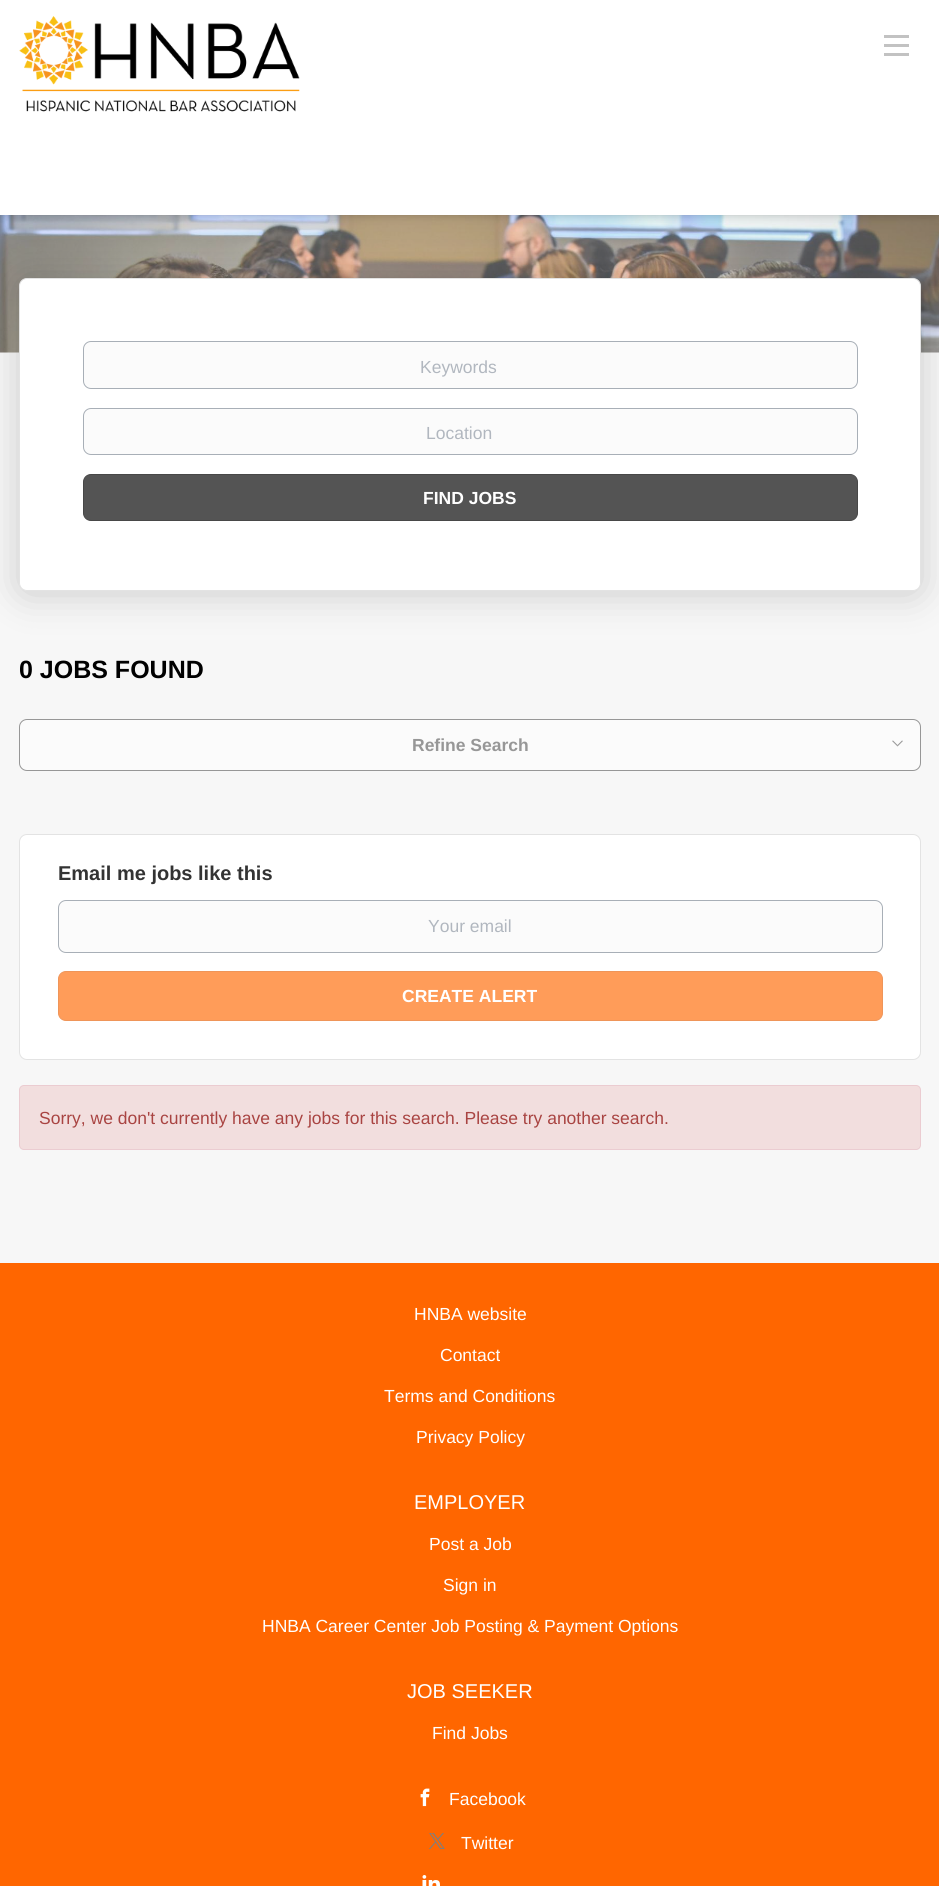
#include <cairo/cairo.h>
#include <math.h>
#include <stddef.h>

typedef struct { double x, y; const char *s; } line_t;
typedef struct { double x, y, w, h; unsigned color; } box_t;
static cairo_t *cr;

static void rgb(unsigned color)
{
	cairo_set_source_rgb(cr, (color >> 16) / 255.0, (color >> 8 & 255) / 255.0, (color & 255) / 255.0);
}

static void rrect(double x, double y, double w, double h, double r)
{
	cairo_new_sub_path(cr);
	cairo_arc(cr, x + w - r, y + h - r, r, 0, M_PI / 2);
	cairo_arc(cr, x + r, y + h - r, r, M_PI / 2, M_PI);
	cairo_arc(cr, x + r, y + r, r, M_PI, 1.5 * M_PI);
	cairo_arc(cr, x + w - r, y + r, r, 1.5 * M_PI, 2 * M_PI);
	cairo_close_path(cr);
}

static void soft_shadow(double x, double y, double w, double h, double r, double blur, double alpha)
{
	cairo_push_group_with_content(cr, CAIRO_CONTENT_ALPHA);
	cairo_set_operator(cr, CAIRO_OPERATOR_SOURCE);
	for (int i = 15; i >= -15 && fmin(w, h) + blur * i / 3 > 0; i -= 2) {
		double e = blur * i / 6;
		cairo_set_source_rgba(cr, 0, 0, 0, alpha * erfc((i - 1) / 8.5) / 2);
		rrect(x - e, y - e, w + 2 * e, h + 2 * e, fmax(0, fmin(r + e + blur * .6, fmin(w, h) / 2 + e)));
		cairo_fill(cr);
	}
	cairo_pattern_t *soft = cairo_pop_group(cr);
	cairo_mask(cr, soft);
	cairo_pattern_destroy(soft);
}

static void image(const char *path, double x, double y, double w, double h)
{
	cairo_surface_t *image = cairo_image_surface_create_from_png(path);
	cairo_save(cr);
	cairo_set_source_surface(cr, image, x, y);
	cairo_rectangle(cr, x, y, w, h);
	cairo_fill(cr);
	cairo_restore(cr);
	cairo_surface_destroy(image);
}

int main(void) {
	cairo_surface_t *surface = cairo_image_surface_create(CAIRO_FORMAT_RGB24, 939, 1886);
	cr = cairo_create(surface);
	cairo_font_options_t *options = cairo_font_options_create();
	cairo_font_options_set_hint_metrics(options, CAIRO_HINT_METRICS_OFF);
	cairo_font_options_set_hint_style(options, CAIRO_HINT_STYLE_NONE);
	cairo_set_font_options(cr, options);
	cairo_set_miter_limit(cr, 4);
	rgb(0xf7f7f7);
	cairo_paint(cr);
	image("img/2.png", 0, 215, 939, 138);
	rgb(0x000000);
	soft_shadow(5, 8, 930, 205, 0, 5.5, 0.3);
	rgb(0xffffff);
	cairo_rectangle(cr, 0, 0, 939, 215);
	cairo_fill(cr);
	image("img/1.png", 19, 16, 281, 96);
	{
		static const box_t items[] = {
			{884, 44, 25, 3, 0xc2c2c2},
			{884, 35, 25, 3, 0xc2c2c2},
			{884, 53, 25, 3, 0xc2c2c2},
		};
		for (size_t i = 0; i < sizeof items / sizeof *items; i++) {
			rgb(items[i].color);
			cairo_rectangle(cr, items[i].x, items[i].y, items[i].w, items[i].h);
			cairo_fill(cr);
		}
	}
	rgb(0x000000);
	soft_shadow(19, 280, 902, 314, 8, 19, 0.18);
	rgb(0xffffff);
	rrect(19.5, 278.5, 901, 312, 7.5);
	cairo_fill_preserve(cr);
	rgb(0xe3e3e3);
	cairo_set_line_width(cr, 1);
	cairo_stroke(cr);
	rgb(0xfbfbfb);
	rrect(83.5, 341.5, 774, 47, 7.5);
	cairo_fill_preserve(cr);
	rgb(0xa8afb7);
	cairo_stroke(cr);
	rgb(0xfbfbfb);
	rrect(83.5, 408.5, 774, 46, 7.5);
	cairo_fill_preserve(cr);
	rgb(0xa8afb7);
	cairo_stroke(cr);
	rgb(0x545454);
	rrect(83.5, 474.5, 774, 46, 7.5);
	cairo_fill_preserve(cr);
	rgb(0x474747);
	cairo_stroke(cr);
	rgb(0xfbfbfb);
	rrect(19.5, 719.5, 901, 51, 7.5);
	cairo_fill_preserve(cr);
	rgb(0x979797);
	cairo_stroke(cr);
	cairo_new_path(cr);
	cairo_move_to(cr, 903, 741);
	cairo_line_to(cr, 897.5, 746.5);
	cairo_line_to(cr, 897.5, 745);
	cairo_line_to(cr, 902, 740.5);
	cairo_close_path(cr);
	cairo_fill(cr);
	cairo_set_source_rgba(cr, 0, 0, 0, 0.4);
	cairo_new_path(cr);
	cairo_move_to(cr, 897.5, 746.5);
	cairo_line_to(cr, 892, 741);
	cairo_line_to(cr, 893, 740.5);
	cairo_line_to(cr, 897.5, 745);
	cairo_close_path(cr);
	cairo_fill(cr);
	rgb(0xffffff);
	rrect(19.5, 834.5, 901, 225, 7.5);
	cairo_fill_preserve(cr);
	rgb(0xe3e3e3);
	cairo_stroke(cr);
	rgb(0xfbfbfb);
	rrect(58.5, 900.5, 824, 52, 7.5);
	cairo_fill_preserve(cr);
	rgb(0xa8afb7);
	cairo_stroke(cr);
	rgb(0xff9c59);
	rrect(58.5, 971.5, 824, 49, 7.5);
	cairo_fill_preserve(cr);
	rgb(0xef9559);
	cairo_stroke(cr);
	rgb(0xf2dede);
	rrect(19.5, 1085.5, 901, 64, 4.5);
	cairo_fill_preserve(cr);
	rgb(0xebccd1);
	cairo_stroke(cr);
	rgb(0xff6600);
	cairo_rectangle(cr, 0, 1263, 939, 623);
	cairo_fill(cr);
	image("img/3.png", 420, 1788, 10, 19);
	image("img/4.png", 429, 1833, 16, 16);
	image("img/5.png", 422, 1875, 18, 11);
	cairo_select_font_face(cr, "Liberation Sans", CAIRO_FONT_SLANT_NORMAL, CAIRO_FONT_WEIGHT_NORMAL);
	cairo_set_font_size(cr, 17.5);
	rgb(0xb1b7bf);
	cairo_move_to(cr, 420, 373);
	cairo_show_text(cr, "Keywords");
	cairo_move_to(cr, 426, 439);
	cairo_show_text(cr, "Location");
	cairo_select_font_face(cr, "Liberation Sans", CAIRO_FONT_SLANT_NORMAL, CAIRO_FONT_WEIGHT_BOLD);
	rgb(0xffffff);
	cairo_move_to(cr, 423, 504);
	cairo_show_text(cr, "FIND JOBS");
	cairo_set_font_size(cr, 25);
	rgb(0x000000);
	cairo_move_to(cr, 19, 678);
	cairo_show_text(cr, "0 JOBS FOUND");
	cairo_set_font_size(cr, 17.5);
	rgb(0x979797);
	cairo_move_to(cr, 412, 751);
	cairo_show_text(cr, "Refine Search");
	cairo_set_font_size(cr, 20);
	rgb(0x333333);
	cairo_move_to(cr, 58, 880);
	cairo_show_text(cr, "Email me jobs like this");
	cairo_select_font_face(cr, "Liberation Sans", CAIRO_FONT_SLANT_NORMAL, CAIRO_FONT_WEIGHT_NORMAL);
	cairo_set_font_size(cr, 17.5);
	rgb(0xb1b7bf);
	cairo_move_to(cr, 428, 932);
	cairo_show_text(cr, "Your email");
	cairo_select_font_face(cr, "Liberation Sans", CAIRO_FONT_SLANT_NORMAL, CAIRO_FONT_WEIGHT_BOLD);
	rgb(0xffffff);
	cairo_move_to(cr, 402, 1002);
	cairo_show_text(cr, "CREATE ALERT");
	cairo_select_font_face(cr, "Liberation Sans", CAIRO_FONT_SLANT_NORMAL, CAIRO_FONT_WEIGHT_NORMAL);
	rgb(0xa94442);
	cairo_move_to(cr, 39, 1124);
	cairo_show_text(cr, "Sorry, we don't currently have any jobs for this search. Please try another search.");
	rgb(0xffffff);
	{
		static const line_t items[] = {
			{414, 1320, "HNBA website"},
			{440, 1361, "Contact"},
			{384, 1402, "Terms and Conditions"},
			{416, 1443, "Privacy Policy"},
		};
		for (size_t i = 0; i < sizeof items / sizeof *items; i++) {
			cairo_move_to(cr, items[i].x, items[i].y);
			cairo_show_text(cr, items[i].s);
		}
	}
	cairo_set_font_size(cr, 20);
	cairo_move_to(cr, 414, 1509);
	cairo_show_text(cr, "EMPLOYER");
	cairo_set_font_size(cr, 17.5);
	{
		static const line_t items[] = {
			{429, 1550, "Post a Job"},
			{443, 1591, "Sign in"},
			{262, 1632, "HNBA Career Center Job Posting & Payment Options"},
		};
		for (size_t i = 0; i < sizeof items / sizeof *items; i++) {
			cairo_move_to(cr, items[i].x, items[i].y);
			cairo_show_text(cr, items[i].s);
		}
	}
	cairo_set_font_size(cr, 20);
	cairo_move_to(cr, 407, 1698);
	cairo_show_text(cr, "JOB SEEKER");
	cairo_set_font_size(cr, 17.5);
	{
		static const line_t items[] = {
			{432, 1739, "Find Jobs"},
			{449, 1805, "Facebook"},
			{461, 1849, "Twitter"},
		};
		for (size_t i = 0; i < sizeof items / sizeof *items; i++) {
			cairo_move_to(cr, items[i].x, items[i].y);
			cairo_show_text(cr, items[i].s);
		}
	}
	cairo_surface_write_to_png(surface, "page.png");
	cairo_font_options_destroy(options);
	cairo_destroy(cr);
	cairo_surface_destroy(surface);
	return 0;
}
